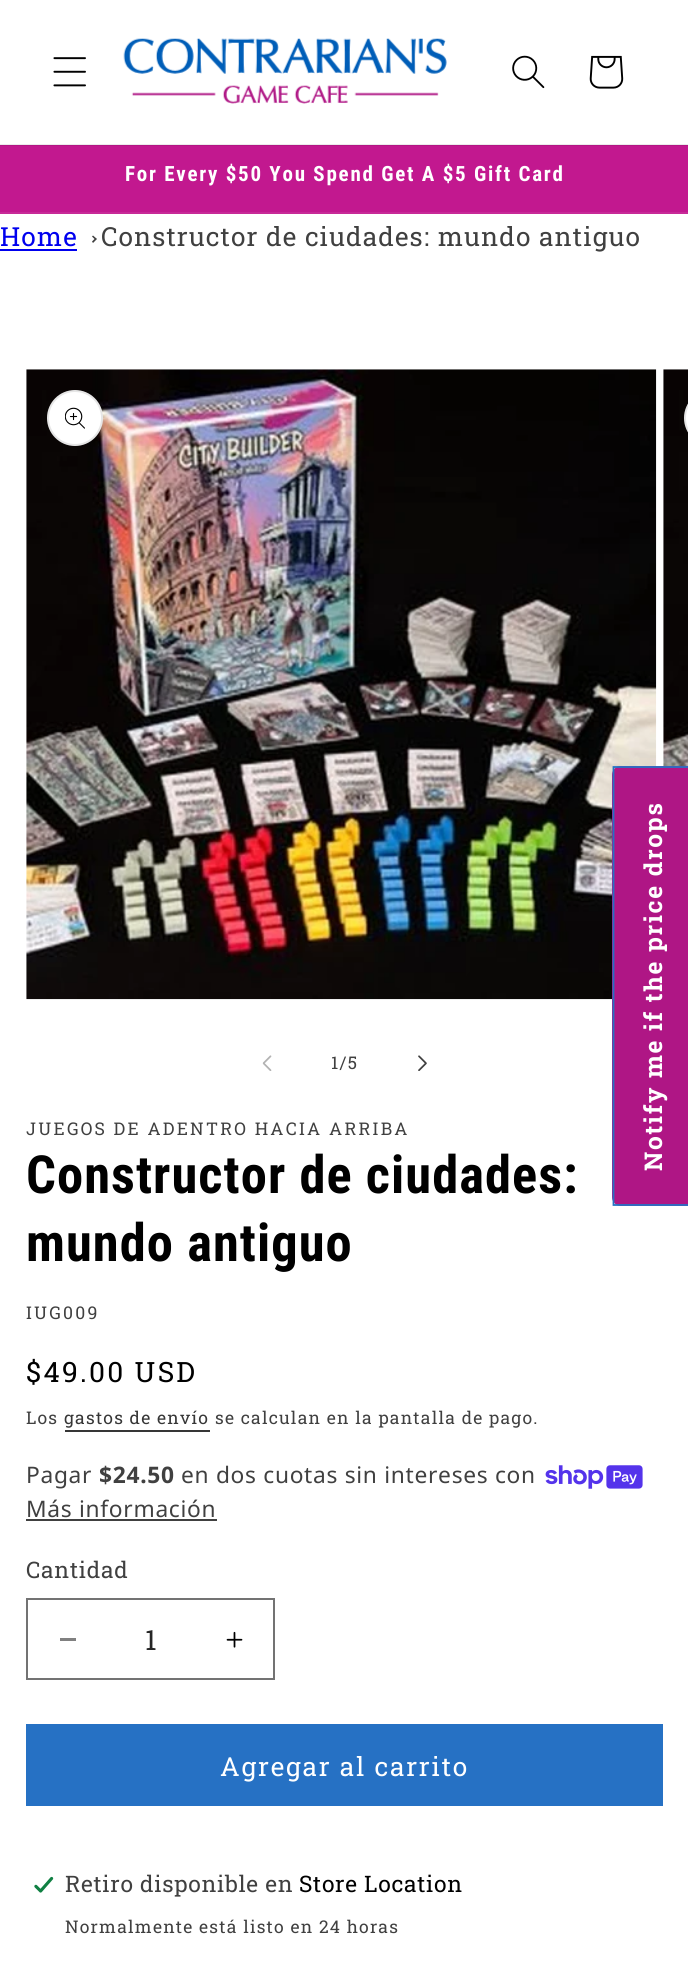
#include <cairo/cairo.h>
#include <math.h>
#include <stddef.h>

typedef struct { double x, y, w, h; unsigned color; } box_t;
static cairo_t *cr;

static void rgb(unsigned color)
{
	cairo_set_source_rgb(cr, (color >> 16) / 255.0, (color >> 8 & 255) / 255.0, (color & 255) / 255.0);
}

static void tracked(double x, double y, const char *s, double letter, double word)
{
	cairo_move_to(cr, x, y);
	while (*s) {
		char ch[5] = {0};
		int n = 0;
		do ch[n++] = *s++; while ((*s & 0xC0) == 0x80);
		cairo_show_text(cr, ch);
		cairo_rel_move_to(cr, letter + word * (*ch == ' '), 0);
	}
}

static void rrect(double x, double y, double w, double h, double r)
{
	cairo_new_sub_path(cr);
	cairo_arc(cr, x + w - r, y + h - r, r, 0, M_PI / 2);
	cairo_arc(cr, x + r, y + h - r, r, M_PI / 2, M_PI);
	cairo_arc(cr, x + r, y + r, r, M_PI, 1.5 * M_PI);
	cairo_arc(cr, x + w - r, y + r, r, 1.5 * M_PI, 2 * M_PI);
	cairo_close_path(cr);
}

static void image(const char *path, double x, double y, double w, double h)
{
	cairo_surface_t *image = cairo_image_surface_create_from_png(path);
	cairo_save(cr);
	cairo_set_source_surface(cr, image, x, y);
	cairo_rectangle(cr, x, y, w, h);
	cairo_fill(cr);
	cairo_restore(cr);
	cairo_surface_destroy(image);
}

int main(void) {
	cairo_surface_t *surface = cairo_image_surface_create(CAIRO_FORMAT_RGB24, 688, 1972);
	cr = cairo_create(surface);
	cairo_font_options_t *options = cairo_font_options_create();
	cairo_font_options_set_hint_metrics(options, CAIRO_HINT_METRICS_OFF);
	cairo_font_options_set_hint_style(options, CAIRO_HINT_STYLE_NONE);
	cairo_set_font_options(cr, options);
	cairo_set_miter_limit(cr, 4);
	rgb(0xffffff);
	cairo_paint(cr);
	rgb(0xebebeb);
	cairo_rectangle(cr, 0, 144, 688, 1);
	cairo_fill(cr);
	image("img/1.png", 53, 57, 33, 30);
	image("img/2.png", 123, 38, 324, 66);
	image("img/3.png", 512, 55, 33, 34);
	image("img/4.png", 589, 55, 35, 34);
	{
		static const box_t items[] = {
			{0, 146, 688, 66, 0xc2188f},
			{0, 145, 688, 1, 0xb21684},
			{0, 212, 688, 2, 0xc72a98},
			{0, 249, 77, 2, 0x0000ee},
		};
		for (size_t i = 0; i < sizeof items / sizeof *items; i++) {
			rgb(items[i].color);
			cairo_rectangle(cr, items[i].x, items[i].y, items[i].w, items[i].h);
			cairo_fill(cr);
		}
	}
	rgb(0x404040);
	cairo_new_path(cr);
	cairo_move_to(cr, 93, 235.5);
	cairo_line_to(cr, 97, 239);
	cairo_line_to(cr, 94.5, 239);
	cairo_line_to(cr, 92, 236.5);
	cairo_close_path(cr);
	cairo_move_to(cr, 97, 239);
	cairo_line_to(cr, 93, 243);
	cairo_line_to(cr, 92, 241.5);
	cairo_line_to(cr, 94.5, 239);
	cairo_close_path(cr);
	cairo_fill(cr);
	image("img/5.png", 26, 369, 631, 631);
	rgb(0xffffff);
	cairo_arc(cr, 75, 418, 28, 0, 2 * M_PI);
	cairo_fill(cr);
	cairo_arc(cr, 75, 418, 27, 0, 2 * M_PI);
	cairo_set_source_rgba(cr, 0, 0, 0, 0.1);
	cairo_stroke(cr);
	image("img/6.png", 65, 407, 20, 22);
	image("img/7.png", 663, 369, 25, 397);
	rgb(0xffffff);
	cairo_new_path(cr);
	cairo_move_to(cr, 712, 390);
	cairo_line_to(cr, 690, 390);
	cairo_line_to(cr, 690, 446);
	cairo_line_to(cr, 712, 446);
	cairo_curve_to(cr, 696.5, 446, 684, 433.5, 684, 418);
	cairo_curve_to(cr, 684, 402.5, 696.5, 390, 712, 390);
	cairo_close_path(cr);
	cairo_fill(cr);
	rrect(685, 391, 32, 54, 27);
	cairo_set_source_rgba(cr, 0, 0, 0, 0.1);
	cairo_stroke(cr);
	image("img/8.png", 262, 1055, 10, 16);
	image("img/9.png", 418, 1055, 9, 16);
	rgb(0x363636);
	cairo_rectangle(cr, 65, 1430, 145, 2);
	cairo_fill(cr);
	image("img/10.png", 545, 1465, 98, 24);
	rgb(0x404040);
	cairo_rectangle(cr, 26, 1519, 191, 2);
	cairo_fill(cr);
	rgb(0x808080);
	cairo_rectangle(cr, 60, 1638, 16, 3);
	cairo_fill(cr);
	image("img/11.png", 226, 1631, 17, 17);
	cairo_rectangle(cr, 27, 1599, 247, 80);
	rgb(0x737373);
	cairo_stroke(cr);
	rgb(0x2671c4);
	cairo_rectangle(cr, 26, 1724, 637, 82);
	cairo_fill(cr);
	image("img/12.png", 34, 1876, 20, 17);
	rgb(0xaf1685);
	cairo_new_path(cr);
	cairo_move_to(cr, 612, 1197);
	cairo_line_to(cr, 612, 775);
	cairo_curve_to(cr, 612, 770, 616, 766, 621, 766);
	cairo_line_to(cr, 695, 766);
	cairo_line_to(cr, 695, 1206);
	cairo_line_to(cr, 621, 1206);
	cairo_curve_to(cr, 616, 1206, 612, 1202, 612, 1197);
	cairo_close_path(cr);
	cairo_fill(cr);
	cairo_select_font_face(cr, "Roboto Condensed", CAIRO_FONT_SLANT_NORMAL, CAIRO_FONT_WEIGHT_BOLD);
	cairo_set_font_size(cr, 21);
	rgb(0xffffff);
	tracked(125, 181, "For Every $50 You Spend Get A $5 Gift Card", 1.75, 0);
	cairo_select_font_face(cr, "Roboto Slab", CAIRO_FONT_SLANT_NORMAL, CAIRO_FONT_WEIGHT_NORMAL);
	cairo_set_font_size(cr, 26.25);
	rgb(0x0000ee);
	tracked(0, 246, "Home", 1.05, 0);
	rgb(0x404040);
	tracked(101, 246, "Constructor de ciudades: mundo antiguo", 1.05, 0);
	cairo_set_font_size(cr, 17.5);
	tracked(331, 1069, "1/5", 1.2, 0);
	tracked(26, 1135, "JUEGOS DE ADENTRO HACIA ARRIBA", 2.25, 0);
	cairo_select_font_face(cr, "Roboto Condensed", CAIRO_FONT_SLANT_NORMAL, CAIRO_FONT_WEIGHT_BOLD);
	cairo_set_font_size(cr, 52.5);
	rgb(0x000000);
	tracked(26, 1193, "Constructor de ciudades:", 1.05, 0);
	tracked(26, 1261, "mundo antiguo", 1.05, 0);
	cairo_select_font_face(cr, "Roboto Slab", CAIRO_FONT_SLANT_NORMAL, CAIRO_FONT_WEIGHT_NORMAL);
	cairo_set_font_size(cr, 17.5);
	rgb(0x404040);
	tracked(26, 1319, "IUG009", 2.25, 0);
	cairo_set_font_size(cr, 28);
	rgb(0x000000);
	tracked(26, 1382, "$49.00 USD", 2.25, 0);
	cairo_set_font_size(cr, 17.5);
	rgb(0x404040);
	tracked(26, 1424, "Los", 1.2, 0);
	rgb(0x363636);
	tracked(64, 1424, "gastos de envío", 1.2, 0);
	rgb(0x404040);
	tracked(215, 1424, "se calculan en la pantalla de pago.", 1.2, 0);
	cairo_select_font_face(cr, "Noto Sans", CAIRO_FONT_SLANT_NORMAL, CAIRO_FONT_WEIGHT_NORMAL);
	cairo_set_font_size(cr, 22.75);
	tracked(26, 1483, "Pagar", 0.7, 0);
	cairo_select_font_face(cr, "Noto Sans", CAIRO_FONT_SLANT_NORMAL, CAIRO_FONT_WEIGHT_BOLD);
	tracked(99, 1483, "$24.50", 0.7, 0);
	cairo_select_font_face(cr, "Noto Sans", CAIRO_FONT_SLANT_NORMAL, CAIRO_FONT_WEIGHT_NORMAL);
	tracked(181, 1483, "en dos cuotas sin intereses con", 0.7, 0);
	tracked(26, 1517, "Más información", 0.7, 0);
	cairo_select_font_face(cr, "Roboto Slab", CAIRO_FONT_SLANT_NORMAL, CAIRO_FONT_WEIGHT_NORMAL);
	tracked(26, 1578, "Cantidad", 0.7, 0);
	cairo_set_font_size(cr, 28);
	rgb(0x262626);
	cairo_move_to(cr, 145, 1650);
	cairo_show_text(cr, "1");
	cairo_set_font_size(cr, 26.25);
	rgb(0xffffff);
	tracked(220, 1776, "Agregar al carrito", 1.75, 0);
	cairo_set_font_size(cr, 22.75);
	rgb(0x404040);
	tracked(65, 1892, "Retiro disponible en", 0.7, 0);
	rgb(0x000000);
	tracked(299, 1892, "Store Location", 0.7, 0);
	cairo_set_font_size(cr, 17.5);
	rgb(0x404040);
	tracked(65, 1933, "Normalmente está listo en 24 horas", 1.2, 0);
	cairo_select_font_face(cr, "Roboto Slab", CAIRO_FONT_SLANT_NORMAL, CAIRO_FONT_WEIGHT_BOLD);
	cairo_set_font_size(cr, 24.5);
	rgb(0xffffff);
	cairo_save(cr);
	cairo_translate(cr, 662, 1171);
	cairo_rotate(cr, -90 * M_PI / 180);
	tracked(0, 0, "Notify me if the price drops", 1.75, 0);
	cairo_restore(cr);
	cairo_new_path(cr);
	cairo_move_to(cr, 613.5, 1205);
	cairo_line_to(cr, 613.5, 767);
	cairo_line_to(cr, 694, 767);
	cairo_line_to(cr, 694, 1205);
	cairo_close_path(cr);
	rgb(0x2671c4);
	cairo_set_line_width(cr, 1.8);
	cairo_stroke(cr);
	cairo_surface_write_to_png(surface, "page.png");
	cairo_font_options_destroy(options);
	cairo_destroy(cr);
	cairo_surface_destroy(surface);
	return 0;
}
